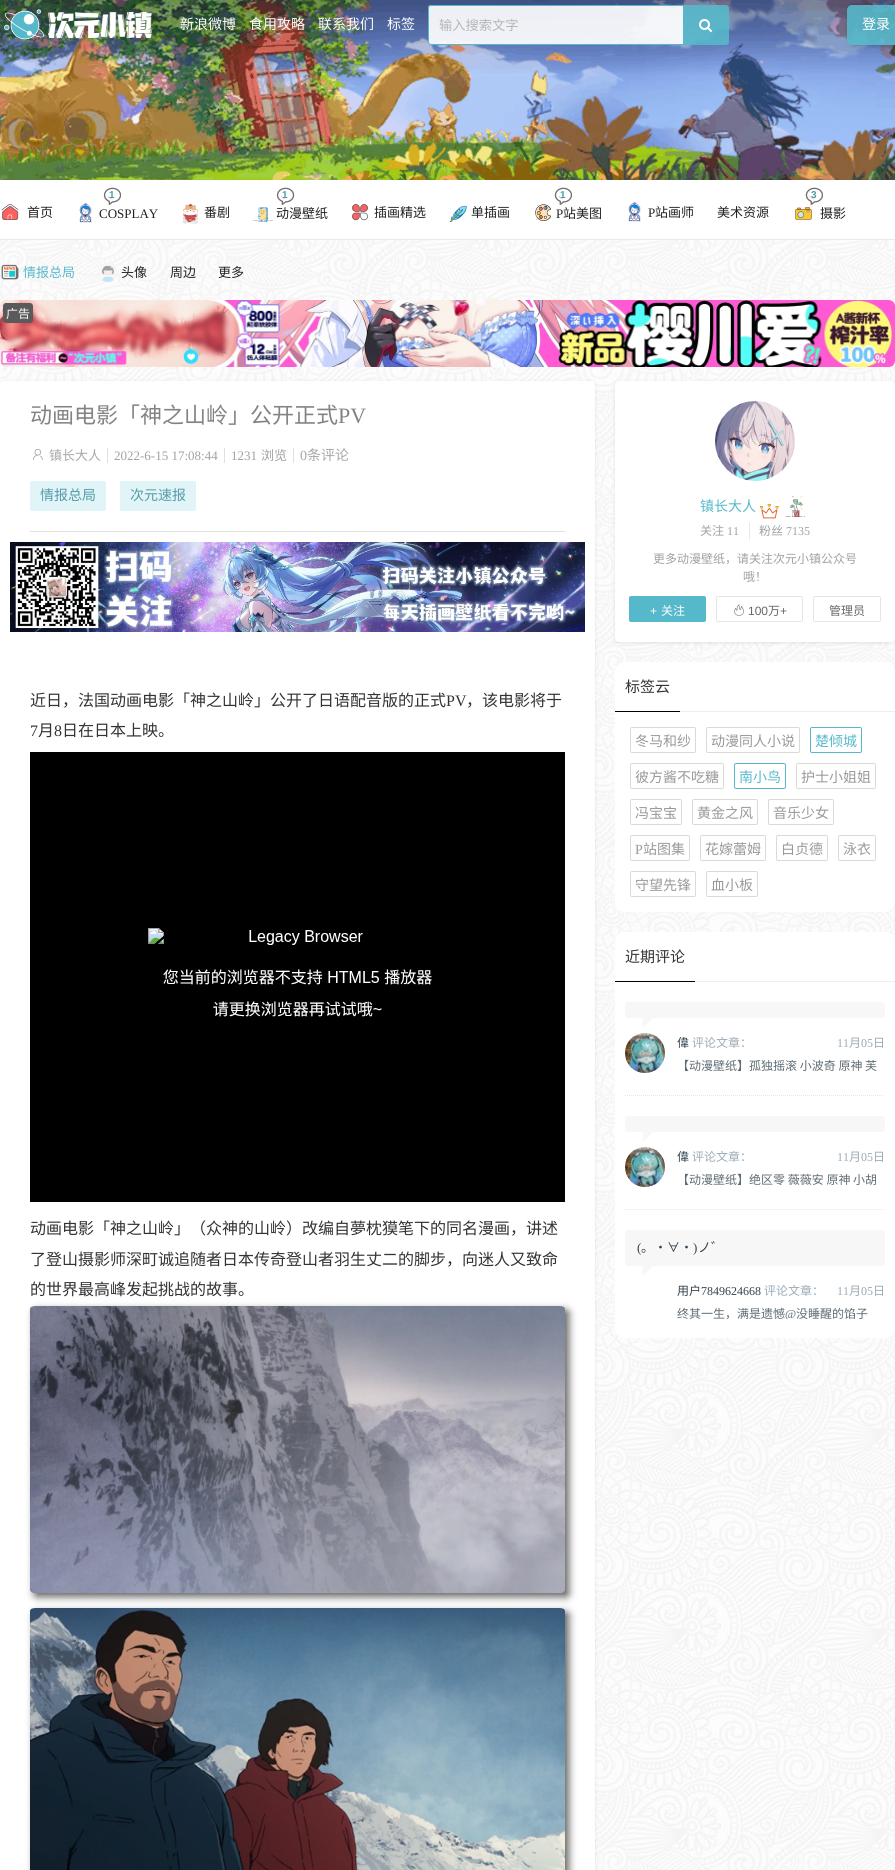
#include <cairo/cairo.h>
#include <math.h>
#include <stddef.h>

typedef struct { double x, y; const char *s; } line_t;
typedef struct { double x, y, w, h; unsigned color; } box_t;
static cairo_t *cr;

static void rgb(unsigned color)
{
	cairo_set_source_rgb(cr, (color >> 16) / 255.0, (color >> 8 & 255) / 255.0, (color & 255) / 255.0);
}

static void rrect(double x, double y, double w, double h, double r)
{
	cairo_new_sub_path(cr);
	cairo_arc(cr, x + w - r, y + h - r, r, 0, M_PI / 2);
	cairo_arc(cr, x + r, y + h - r, r, M_PI / 2, M_PI);
	cairo_arc(cr, x + r, y + r, r, M_PI, 1.5 * M_PI);
	cairo_arc(cr, x + w - r, y + r, r, 1.5 * M_PI, 2 * M_PI);
	cairo_close_path(cr);
}

static void soft_shadow(double x, double y, double w, double h, double r, double blur, double alpha)
{
	cairo_push_group_with_content(cr, CAIRO_CONTENT_ALPHA);
	cairo_set_operator(cr, CAIRO_OPERATOR_SOURCE);
	for (int i = 15; i >= -15 && fmin(w, h) + blur * i / 3 > 0; i -= 2) {
		double e = blur * i / 6;
		cairo_set_source_rgba(cr, 0, 0, 0, alpha * erfc((i - 1) / 8.5) / 2);
		rrect(x - e, y - e, w + 2 * e, h + 2 * e, fmax(0, fmin(r + e + blur * .6, fmin(w, h) / 2 + e)));
		cairo_fill(cr);
	}
	cairo_pattern_t *soft = cairo_pop_group(cr);
	cairo_mask(cr, soft);
	cairo_pattern_destroy(soft);
}

static void image(const char *path, double x, double y, double w, double h)
{
	cairo_surface_t *image = cairo_image_surface_create_from_png(path);
	cairo_save(cr);
	cairo_set_source_surface(cr, image, x, y);
	cairo_rectangle(cr, x, y, w, h);
	cairo_fill(cr);
	cairo_restore(cr);
	cairo_surface_destroy(image);
}

int main(void) {
	cairo_surface_t *surface = cairo_image_surface_create(CAIRO_FORMAT_RGB24, 895, 1870);
	cr = cairo_create(surface);
	cairo_font_options_t *options = cairo_font_options_create();
	cairo_font_options_set_hint_metrics(options, CAIRO_HINT_METRICS_OFF);
	cairo_font_options_set_hint_style(options, CAIRO_HINT_STYLE_NONE);
	cairo_set_font_options(cr, options);
	cairo_set_miter_limit(cr, 4);
	rgb(0xffffff);
	cairo_paint(cr);
	image("img/1.png", 0, 240, 895, 1630);
	image("img/2.png", 0, 0, 895, 180);
	image("img/3.png", 4, 9, 148, 31);
	cairo_set_source_rgba(cr, 1, 1, 1, 0.91);
	cairo_new_path(cr);
	cairo_move_to(cr, 431, 5);
	cairo_line_to(cr, 683, 5);
	cairo_line_to(cr, 683, 45);
	cairo_line_to(cr, 431, 45);
	cairo_curve_to(cr, 429.5, 45, 428, 43.5, 428, 42);
	cairo_line_to(cr, 428, 8);
	cairo_curve_to(cr, 428, 6.5, 429.5, 5, 431, 5);
	cairo_close_path(cr);
	cairo_fill(cr);
	rgb(0x56b9cb);
	cairo_set_fill_rule(cr, CAIRO_FILL_RULE_EVEN_ODD);
	cairo_new_path(cr);
	cairo_move_to(cr, 431, 5);
	cairo_line_to(cr, 683, 5);
	cairo_line_to(cr, 683, 45);
	cairo_line_to(cr, 431, 45);
	cairo_curve_to(cr, 429, 45, 428, 44, 428, 42);
	cairo_line_to(cr, 428, 8);
	cairo_curve_to(cr, 428, 6, 429, 5, 431, 5);
	cairo_close_path(cr);
	cairo_move_to(cr, 431, 6);
	cairo_line_to(cr, 683, 6);
	cairo_line_to(cr, 683, 44);
	cairo_line_to(cr, 431, 44);
	cairo_curve_to(cr, 430, 44, 429, 43, 429, 42);
	cairo_line_to(cr, 429, 8);
	cairo_curve_to(cr, 429, 7, 430, 6, 431, 6);
	cairo_close_path(cr);
	cairo_fill(cr);
	cairo_set_source_rgba(cr, 0.337, 0.725, 0.796, 0.88);
	cairo_new_path(cr);
	cairo_move_to(cr, 683, 5);
	cairo_line_to(cr, 726, 5);
	cairo_curve_to(cr, 727.5, 5, 729, 6.5, 729, 8);
	cairo_line_to(cr, 729, 42);
	cairo_curve_to(cr, 729, 43.5, 727.5, 45, 726, 45);
	cairo_line_to(cr, 683, 45);
	cairo_close_path(cr);
	cairo_fill(cr);
	image("img/4.png", 699, 19, 13, 13);
	cairo_save(cr);
	cairo_new_path(cr);
	cairo_move_to(cr, 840, 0);
	cairo_line_to(cr, 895, 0);
	cairo_line_to(cr, 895, 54);
	cairo_line_to(cr, 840, 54);
	cairo_close_path(cr);
	cairo_move_to(cr, 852, 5);
	cairo_line_to(cr, 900, 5);
	cairo_curve_to(cr, 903, 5, 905, 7, 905, 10);
	cairo_line_to(cr, 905, 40);
	cairo_curve_to(cr, 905, 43, 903, 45, 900, 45);
	cairo_line_to(cr, 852, 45);
	cairo_curve_to(cr, 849, 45, 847, 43, 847, 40);
	cairo_line_to(cr, 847, 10);
	cairo_curve_to(cr, 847, 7, 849, 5, 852, 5);
	cairo_close_path(cr);
	cairo_clip(cr);
	rgb(0x000000);
	soft_shadow(849, 5, 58, 40, 5, 2.5, 0.32);
	cairo_restore(cr);
	rrect(847, 5, 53, 40, 5);
	cairo_fill(cr);
	rgb(0xeaeaea);
	cairo_rectangle(cr, 0, 239, 895, 1);
	cairo_fill(cr);
	image("img/5.png", 1, 204, 18, 16);
	image("img/6.png", 103, 187, 18, 18);
	image("img/7.png", 79, 203, 13, 20);
	image("img/8.png", 182, 204, 16, 20);
	image("img/9.png", 276, 187, 19, 18);
	image("img/10.png", 253, 207, 20, 15);
	image("img/11.png", 352, 204, 16, 17);
	image("img/12.png", 449, 205, 18, 17);
	image("img/13.png", 554, 187, 18, 18);
	image("img/14.png", 535, 204, 17, 17);
	image("img/7.png", 628, 202, 13, 20);
	image("img/15.png", 805, 187, 18, 18);
	image("img/16.png", 795, 207, 17, 13);
	image("img/17.png", 1, 264, 18, 16);
	image("img/18.png", 99, 264, 18, 18);
	image("img/19.png", 0, 300, 895, 67);
	rgb(0x5a5a5a);
	rrect(3, 303, 30, 20, 3);
	cairo_fill(cr);
	rgb(0x000000);
	soft_shadow(0, 382, 595, 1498, 4, 2, 0.1);
	rgb(0xffffff);
	rrect(0, 381, 595, 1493, 4);
	cairo_fill(cr);
	image("img/20.png", 33, 448, 10, 12);
	{
		static const box_t items[] = {
			{107, 448, 1, 15, 0xe0e0e0},
			{224, 448, 1, 15, 0xe0e0e0},
			{293, 448, 1, 15, 0xe0e0e0},
		};
		for (size_t i = 0; i < sizeof items / sizeof *items; i++) {
			rgb(items[i].color);
			cairo_rectangle(cr, items[i].x, items[i].y, items[i].w, items[i].h);
			cairo_fill(cr);
		}
	}
	rgb(0xe1f4f7);
	rrect(30, 481, 76, 30, 2);
	cairo_fill(cr);
	rrect(120, 481, 76, 30, 2);
	cairo_fill(cr);
	rgb(0xe0e0e0);
	cairo_rectangle(cr, 30, 531, 535, 1);
	cairo_fill(cr);
	image("img/21.png", 10, 542, 575, 90);
	image("img/22.png", 30, 752, 535, 450);
	rgb(0x666665);
	soft_shadow(34, 1310, 535, 287, 3, 4, 1);
	image("img/23.png", 30, 1306, 535, 287);
	soft_shadow(34, 1612, 535, 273, 3, 4, 1);
	image("img/24.png", 30, 1608, 535, 262);
	rgb(0x000000);
	soft_shadow(615, 382, 280, 261, 4, 2, 0.1);
	rgb(0xffffff);
	rrect(615, 381, 280, 261, 4);
	cairo_fill(cr);
	image("img/25.png", 715, 401, 80, 80);
	image("img/26.png", 760, 503, 19, 16);
	image("img/27.png", 785, 496, 20, 21);
	rgb(0xe9e9f0);
	cairo_rectangle(cr, 749, 522, 1, 18);
	cairo_fill(cr);
	rgb(0x56b9cb);
	rrect(629.5, 596.5, 76, 25, 1.5);
	cairo_fill_preserve(cr);
	cairo_set_line_width(cr, 1);
	cairo_stroke(cr);
	rrect(716.5, 596.5, 86, 25, 1.5);
	rgb(0xe5e5e5);
	cairo_stroke(cr);
	image("img/28.png", 734, 604, 10, 12);
	rrect(813.5, 596.5, 67, 25, 1.5);
	cairo_stroke(cr);
	rgb(0xffffff);
	cairo_new_path(cr);
	cairo_move_to(cr, 625, 662);
	cairo_line_to(cr, 885, 662);
	cairo_curve_to(cr, 890.5, 662, 895, 666.5, 895, 672);
	cairo_line_to(cr, 895, 712);
	cairo_line_to(cr, 615, 712);
	cairo_line_to(cr, 615, 672);
	cairo_curve_to(cr, 615, 666.5, 619.5, 662, 625, 662);
	cairo_close_path(cr);
	cairo_fill(cr);
	rgb(0xeeeeee);
	cairo_rectangle(cr, 680, 711, 215, 1);
	cairo_fill(cr);
	rgb(0x000000);
	cairo_rectangle(cr, 615, 711, 65, 1);
	cairo_fill(cr);
	rgb(0xffffff);
	cairo_new_path(cr);
	cairo_move_to(cr, 615, 712);
	cairo_line_to(cr, 895, 712);
	cairo_line_to(cr, 895, 902);
	cairo_curve_to(cr, 895, 907.5, 890.5, 912, 885, 912);
	cairo_line_to(cr, 625, 912);
	cairo_curve_to(cr, 619.5, 912, 615, 907.5, 615, 902);
	cairo_close_path(cr);
	cairo_fill(cr);
	rrect(630.5, 727.5, 65, 25, 1.5);
	rgb(0xdadada);
	cairo_stroke(cr);
	rrect(706.5, 727.5, 93, 25, 1.5);
	cairo_stroke(cr);
	rrect(810.5, 727.5, 51, 25, 1.5);
	rgb(0x56b9cb);
	cairo_stroke(cr);
	rrect(630.5, 763.5, 93, 25, 1.5);
	rgb(0xdadada);
	cairo_stroke(cr);
	rrect(734.5, 763.5, 51, 25, 1.5);
	rgb(0x56b9cb);
	cairo_stroke(cr);
	rrect(796.5, 763.5, 79, 25, 1.5);
	rgb(0xdadada);
	cairo_stroke(cr);
	rrect(630.5, 799.5, 51, 25, 1.5);
	cairo_stroke(cr);
	rrect(692.5, 799.5, 65, 25, 1.5);
	cairo_stroke(cr);
	rrect(768.5, 799.5, 65, 25, 1.5);
	cairo_stroke(cr);
	rrect(630.5, 835.5, 59, 25, 1.5);
	cairo_stroke(cr);
	rrect(700.5, 835.5, 65, 25, 1.5);
	cairo_stroke(cr);
	rrect(776.5, 835.5, 51, 25, 1.5);
	cairo_stroke(cr);
	rrect(838.5, 835.5, 37, 25, 1.5);
	cairo_stroke(cr);
	rrect(630.5, 871.5, 65, 25, 1.5);
	cairo_stroke(cr);
	rrect(706.5, 871.5, 51, 25, 1.5);
	cairo_stroke(cr);
	rgb(0xffffff);
	rrect(615, 932, 280, 406, 10);
	cairo_fill(cr);
	cairo_new_path(cr);
	cairo_move_to(cr, 625, 932);
	cairo_line_to(cr, 885, 932);
	cairo_curve_to(cr, 890.5, 932, 895, 936.5, 895, 942);
	cairo_line_to(cr, 895, 982);
	cairo_line_to(cr, 615, 982);
	cairo_line_to(cr, 615, 942);
	cairo_curve_to(cr, 615, 936.5, 619.5, 932, 625, 932);
	cairo_close_path(cr);
	cairo_fill(cr);
	rgb(0xeeeeee);
	cairo_rectangle(cr, 695, 981, 200, 1);
	cairo_fill(cr);
	rgb(0x000000);
	cairo_rectangle(cr, 615, 981, 80, 1);
	cairo_fill(cr);
	cairo_new_path(cr);
	cairo_move_to(cr, 625, 1095.5);
	cairo_line_to(cr, 885, 1095.5);
	rgb(0xe6e6e6);
	cairo_set_dash(cr, (double[]){1, 1}, 2, 0);
	cairo_stroke(cr);
	rgb(0xf7f7f7);
	rrect(625, 1002, 260, 16, 3);
	cairo_fill(cr);
	cairo_set_fill_rule(cr, CAIRO_FILL_RULE_WINDING);
	cairo_new_path(cr);
	cairo_move_to(cr, 643, 1028);
	cairo_line_to(cr, 643, 1008);
	cairo_line_to(cr, 653, 1018);
	cairo_close_path(cr);
	cairo_fill(cr);
	image("img/29.png", 625, 1033, 40, 40);
	cairo_new_path(cr);
	cairo_move_to(cr, 625, 1209.5);
	cairo_line_to(cr, 885, 1209.5);
	rgb(0xe6e6e6);
	cairo_stroke(cr);
	rgb(0xf7f7f7);
	rrect(625, 1116, 260, 16, 3);
	cairo_fill(cr);
	cairo_new_path(cr);
	cairo_move_to(cr, 643, 1142);
	cairo_line_to(cr, 643, 1122);
	cairo_line_to(cr, 653, 1132);
	cairo_close_path(cr);
	cairo_fill(cr);
	image("img/29.png", 625, 1147, 40, 40);
	rrect(625, 1230, 260, 36, 3);
	cairo_fill(cr);
	cairo_new_path(cr);
	cairo_move_to(cr, 643, 1276);
	cairo_line_to(cr, 643, 1256);
	cairo_line_to(cr, 653, 1266);
	cairo_close_path(cr);
	cairo_fill(cr);
	cairo_select_font_face(cr, "Noto Sans CJK SC", CAIRO_FONT_SLANT_NORMAL, CAIRO_FONT_WEIGHT_NORMAL);
	cairo_set_font_size(cr, 14);
	rgb(0xffffff);
	{
		static const line_t items[] = {
			{180, 29, "新浪微博"},
			{249, 29, "食用攻略"},
			{318, 29, "联系我们"},
			{387, 29, "标签"},
		};
		for (size_t i = 0; i < sizeof items / sizeof *items; i++) {
			cairo_move_to(cr, items[i].x, items[i].y);
			cairo_show_text(cr, items[i].s);
		}
	}
	cairo_set_font_size(cr, 13.25);
	rgb(0xb5b5b5);
	cairo_move_to(cr, 439, 30);
	cairo_show_text(cr, "输入搜索文字");
	cairo_set_font_size(cr, 14);
	rgb(0xffffff);
	cairo_move_to(cr, 862, 29);
	cairo_show_text(cr, "登录");
	cairo_set_font_size(cr, 13);
	rgb(0x222222);
	cairo_move_to(cr, 27, 217);
	cairo_show_text(cr, "首页");
	cairo_select_font_face(cr, "Liberation Sans", CAIRO_FONT_SLANT_NORMAL, CAIRO_FONT_WEIGHT_BOLD);
	cairo_set_font_size(cr, 10);
	rgb(0x4c9aa9);
	cairo_move_to(cr, 109, 198);
	cairo_show_text(cr, "1");
	cairo_select_font_face(cr, "Liberation Serif", CAIRO_FONT_SLANT_NORMAL, CAIRO_FONT_WEIGHT_NORMAL);
	cairo_set_font_size(cr, 13);
	rgb(0x222222);
	cairo_move_to(cr, 99, 218);
	cairo_show_text(cr, "COSPLAY");
	cairo_select_font_face(cr, "Noto Sans CJK SC", CAIRO_FONT_SLANT_NORMAL, CAIRO_FONT_WEIGHT_NORMAL);
	cairo_move_to(cr, 204, 217);
	cairo_show_text(cr, "番剧");
	cairo_select_font_face(cr, "Liberation Sans", CAIRO_FONT_SLANT_NORMAL, CAIRO_FONT_WEIGHT_BOLD);
	cairo_set_font_size(cr, 10);
	rgb(0x4c9aa9);
	cairo_move_to(cr, 282, 198);
	cairo_show_text(cr, "1");
	cairo_select_font_face(cr, "Noto Sans CJK SC", CAIRO_FONT_SLANT_NORMAL, CAIRO_FONT_WEIGHT_NORMAL);
	cairo_set_font_size(cr, 13);
	rgb(0x222222);
	{
		static const line_t items[] = {
			{276, 218, "动漫壁纸"},
			{374, 217, "插画精选"},
			{471, 217, "单插画"},
		};
		for (size_t i = 0; i < sizeof items / sizeof *items; i++) {
			cairo_move_to(cr, items[i].x, items[i].y);
			cairo_show_text(cr, items[i].s);
		}
	}
	cairo_select_font_face(cr, "Liberation Sans", CAIRO_FONT_SLANT_NORMAL, CAIRO_FONT_WEIGHT_BOLD);
	cairo_set_font_size(cr, 10);
	rgb(0x4c9aa9);
	cairo_move_to(cr, 560, 198);
	cairo_show_text(cr, "1");
	cairo_select_font_face(cr, "Liberation Serif", CAIRO_FONT_SLANT_NORMAL, CAIRO_FONT_WEIGHT_NORMAL);
	cairo_set_font_size(cr, 13);
	rgb(0x222222);
	cairo_move_to(cr, 556, 218);
	cairo_show_text(cr, "P");
	cairo_select_font_face(cr, "Noto Sans CJK SC", CAIRO_FONT_SLANT_NORMAL, CAIRO_FONT_WEIGHT_NORMAL);
	cairo_move_to(cr, 563, 218);
	cairo_show_text(cr, "站美图");
	cairo_select_font_face(cr, "Liberation Serif", CAIRO_FONT_SLANT_NORMAL, CAIRO_FONT_WEIGHT_NORMAL);
	cairo_move_to(cr, 648, 217);
	cairo_show_text(cr, "P");
	cairo_select_font_face(cr, "Noto Sans CJK SC", CAIRO_FONT_SLANT_NORMAL, CAIRO_FONT_WEIGHT_NORMAL);
	cairo_move_to(cr, 655, 217);
	cairo_show_text(cr, "站画师");
	cairo_move_to(cr, 717, 217);
	cairo_show_text(cr, "美术资源");
	cairo_select_font_face(cr, "Liberation Sans", CAIRO_FONT_SLANT_NORMAL, CAIRO_FONT_WEIGHT_BOLD);
	cairo_set_font_size(cr, 10);
	rgb(0x4c9aa9);
	cairo_move_to(cr, 811, 198);
	cairo_show_text(cr, "3");
	cairo_select_font_face(cr, "Noto Sans CJK SC", CAIRO_FONT_SLANT_NORMAL, CAIRO_FONT_WEIGHT_NORMAL);
	cairo_set_font_size(cr, 13);
	rgb(0x222222);
	cairo_move_to(cr, 820, 218);
	cairo_show_text(cr, "摄影");
	rgb(0x56b9cb);
	cairo_move_to(cr, 23, 277);
	cairo_show_text(cr, "情报总局");
	rgb(0x222222);
	{
		static const line_t items[] = {
			{121, 277, "头像"},
			{170, 277, "周边"},
			{218, 277, "更多"},
		};
		for (size_t i = 0; i < sizeof items / sizeof *items; i++) {
			cairo_move_to(cr, items[i].x, items[i].y);
			cairo_show_text(cr, items[i].s);
		}
	}
	cairo_set_font_size(cr, 12);
	rgb(0xffffff);
	cairo_move_to(cr, 6, 318);
	cairo_show_text(cr, "广告");
	cairo_set_font_size(cr, 22);
	rgb(0x848383);
	cairo_move_to(cr, 30, 423);
	cairo_show_text(cr, "动画电影「神之山岭」公开正式");
	cairo_select_font_face(cr, "Liberation Serif", CAIRO_FONT_SLANT_NORMAL, CAIRO_FONT_WEIGHT_NORMAL);
	cairo_move_to(cr, 338, 423);
	cairo_show_text(cr, "PV");
	cairo_select_font_face(cr, "Noto Sans CJK SC", CAIRO_FONT_SLANT_NORMAL, CAIRO_FONT_WEIGHT_NORMAL);
	cairo_set_font_size(cr, 13);
	rgb(0xa9a7a7);
	cairo_move_to(cr, 49, 460);
	cairo_show_text(cr, "镇长大人");
	cairo_select_font_face(cr, "Liberation Serif", CAIRO_FONT_SLANT_NORMAL, CAIRO_FONT_WEIGHT_NORMAL);
	rgb(0xa1a1a6);
	cairo_move_to(cr, 114, 460);
	cairo_show_text(cr, "2022-6-15 17:08:44");
	cairo_move_to(cr, 231, 460);
	cairo_show_text(cr, "1231");
	cairo_select_font_face(cr, "Noto Sans CJK SC", CAIRO_FONT_SLANT_NORMAL, CAIRO_FONT_WEIGHT_NORMAL);
	cairo_move_to(cr, 261, 460);
	cairo_show_text(cr, "浏览");
	cairo_select_font_face(cr, "Liberation Serif", CAIRO_FONT_SLANT_NORMAL, CAIRO_FONT_WEIGHT_NORMAL);
	cairo_set_font_size(cr, 14);
	rgb(0xa9a7a7);
	cairo_move_to(cr, 300, 460);
	cairo_show_text(cr, "0");
	cairo_select_font_face(cr, "Noto Sans CJK SC", CAIRO_FONT_SLANT_NORMAL, CAIRO_FONT_WEIGHT_NORMAL);
	cairo_move_to(cr, 307, 460);
	cairo_show_text(cr, "条评论");
	rgb(0x549ca9);
	cairo_move_to(cr, 40, 500);
	cairo_show_text(cr, "情报总局");
	cairo_move_to(cr, 130, 500);
	cairo_show_text(cr, "次元速报");
	cairo_set_font_size(cr, 16);
	rgb(0x333333);
	cairo_move_to(cr, 30, 706);
	cairo_show_text(cr, "近日，法国动画电影「神之山岭」公开了日语配音版的正式");
	cairo_select_font_face(cr, "Liberation Serif", CAIRO_FONT_SLANT_NORMAL, CAIRO_FONT_WEIGHT_NORMAL);
	cairo_move_to(cr, 446, 706);
	cairo_show_text(cr, "PV");
	cairo_select_font_face(cr, "Noto Sans CJK SC", CAIRO_FONT_SLANT_NORMAL, CAIRO_FONT_WEIGHT_NORMAL);
	cairo_move_to(cr, 466, 706);
	cairo_show_text(cr, "，该电影将于");
	cairo_select_font_face(cr, "Liberation Serif", CAIRO_FONT_SLANT_NORMAL, CAIRO_FONT_WEIGHT_NORMAL);
	cairo_move_to(cr, 30, 736);
	cairo_show_text(cr, "7");
	cairo_select_font_face(cr, "Noto Sans CJK SC", CAIRO_FONT_SLANT_NORMAL, CAIRO_FONT_WEIGHT_NORMAL);
	cairo_move_to(cr, 38, 736);
	cairo_show_text(cr, "月");
	cairo_select_font_face(cr, "Liberation Serif", CAIRO_FONT_SLANT_NORMAL, CAIRO_FONT_WEIGHT_NORMAL);
	cairo_move_to(cr, 54, 736);
	cairo_show_text(cr, "8");
	cairo_select_font_face(cr, "Noto Sans CJK SC", CAIRO_FONT_SLANT_NORMAL, CAIRO_FONT_WEIGHT_NORMAL);
	{
		static const line_t items[] = {
			{62, 736, "日在日本上映。"},
			{30, 1234, "动画电影「神之山岭」（众神的山岭）改编自夢枕獏笔下的同名漫画，讲述"},
			{30, 1265, "了登山摄影师深町诚追随者日本传奇登山者羽生丈二的脚步，向迷人又致命"},
			{30, 1295, "的世界最高峰发起挑战的故事。"},
		};
		for (size_t i = 0; i < sizeof items / sizeof *items; i++) {
			cairo_move_to(cr, items[i].x, items[i].y);
			cairo_show_text(cr, items[i].s);
		}
	}
	cairo_set_font_size(cr, 14);
	rgb(0x56b9cb);
	cairo_move_to(cr, 700, 511);
	cairo_show_text(cr, "镇长大人");
	cairo_set_font_size(cr, 12);
	rgb(0xa1a1a6);
	cairo_move_to(cr, 700, 535);
	cairo_show_text(cr, "关注");
	cairo_select_font_face(cr, "Liberation Serif", CAIRO_FONT_SLANT_NORMAL, CAIRO_FONT_WEIGHT_NORMAL);
	cairo_move_to(cr, 727, 535);
	cairo_show_text(cr, "11");
	cairo_select_font_face(cr, "Noto Sans CJK SC", CAIRO_FONT_SLANT_NORMAL, CAIRO_FONT_WEIGHT_NORMAL);
	cairo_move_to(cr, 759, 535);
	cairo_show_text(cr, "粉丝");
	cairo_select_font_face(cr, "Liberation Serif", CAIRO_FONT_SLANT_NORMAL, CAIRO_FONT_WEIGHT_NORMAL);
	cairo_move_to(cr, 786, 535);
	cairo_show_text(cr, "7135");
	cairo_select_font_face(cr, "Noto Sans CJK SC", CAIRO_FONT_SLANT_NORMAL, CAIRO_FONT_WEIGHT_NORMAL);
	cairo_move_to(cr, 653, 563);
	cairo_show_text(cr, "更多动漫壁纸，请关注次元小镇公众号");
	cairo_move_to(cr, 743, 581);
	cairo_show_text(cr, "哦！");
	cairo_select_font_face(cr, "Liberation Sans", CAIRO_FONT_SLANT_NORMAL, CAIRO_FONT_WEIGHT_NORMAL);
	rgb(0xffffff);
	cairo_move_to(cr, 650, 615);
	cairo_show_text(cr, "+");
	cairo_select_font_face(cr, "Noto Sans CJK SC", CAIRO_FONT_SLANT_NORMAL, CAIRO_FONT_WEIGHT_NORMAL);
	cairo_move_to(cr, 661, 615);
	cairo_show_text(cr, "关注");
	cairo_select_font_face(cr, "Liberation Sans", CAIRO_FONT_SLANT_NORMAL, CAIRO_FONT_WEIGHT_NORMAL);
	rgb(0x666666);
	cairo_move_to(cr, 748, 615);
	cairo_show_text(cr, "100");
	cairo_select_font_face(cr, "Noto Sans CJK SC", CAIRO_FONT_SLANT_NORMAL, CAIRO_FONT_WEIGHT_NORMAL);
	cairo_move_to(cr, 768, 615);
	cairo_show_text(cr, "万");
	cairo_select_font_face(cr, "Liberation Sans", CAIRO_FONT_SLANT_NORMAL, CAIRO_FONT_WEIGHT_NORMAL);
	cairo_move_to(cr, 780, 615);
	cairo_show_text(cr, "+");
	cairo_select_font_face(cr, "Noto Sans CJK SC", CAIRO_FONT_SLANT_NORMAL, CAIRO_FONT_WEIGHT_NORMAL);
	cairo_move_to(cr, 829, 615);
	cairo_show_text(cr, "管理员");
	cairo_set_font_size(cr, 15);
	rgb(0x333333);
	cairo_move_to(cr, 625, 692);
	cairo_show_text(cr, "标签云");
	cairo_set_font_size(cr, 14);
	rgb(0x999999);
	cairo_move_to(cr, 635, 746);
	cairo_show_text(cr, "冬马和纱");
	cairo_move_to(cr, 711, 746);
	cairo_show_text(cr, "动漫同人小说");
	rgb(0x56b9cb);
	cairo_move_to(cr, 815, 746);
	cairo_show_text(cr, "楚倾城");
	rgb(0x999999);
	cairo_move_to(cr, 635, 782);
	cairo_show_text(cr, "彼方酱不吃糖");
	rgb(0x56b9cb);
	cairo_move_to(cr, 739, 782);
	cairo_show_text(cr, "南小鸟");
	rgb(0x999999);
	{
		static const line_t items[] = {
			{801, 782, "护士小姐姐"},
			{635, 818, "冯宝宝"},
			{697, 818, "黄金之风"},
			{773, 818, "音乐少女"},
		};
		for (size_t i = 0; i < sizeof items / sizeof *items; i++) {
			cairo_move_to(cr, items[i].x, items[i].y);
			cairo_show_text(cr, items[i].s);
		}
	}
	cairo_select_font_face(cr, "Liberation Serif", CAIRO_FONT_SLANT_NORMAL, CAIRO_FONT_WEIGHT_NORMAL);
	cairo_move_to(cr, 635, 854);
	cairo_show_text(cr, "P");
	cairo_select_font_face(cr, "Noto Sans CJK SC", CAIRO_FONT_SLANT_NORMAL, CAIRO_FONT_WEIGHT_NORMAL);
	{
		static const line_t items[] = {
			{643, 854, "站图集"},
			{705, 854, "花嫁蕾姆"},
			{781, 854, "白贞德"},
			{843, 854, "泳衣"},
			{635, 890, "守望先锋"},
			{711, 890, "血小板"},
		};
		for (size_t i = 0; i < sizeof items / sizeof *items; i++) {
			cairo_move_to(cr, items[i].x, items[i].y);
			cairo_show_text(cr, items[i].s);
		}
	}
	cairo_set_font_size(cr, 15);
	rgb(0x333333);
	cairo_move_to(cr, 625, 962);
	cairo_show_text(cr, "近期评论");
	cairo_set_font_size(cr, 12);
	rgb(0x31424e);
	cairo_move_to(cr, 677, 1047);
	cairo_show_text(cr, "偉");
	rgb(0x9baab6);
	cairo_move_to(cr, 692, 1047);
	cairo_show_text(cr, "评论文章：");
	cairo_select_font_face(cr, "Liberation Serif", CAIRO_FONT_SLANT_NORMAL, CAIRO_FONT_WEIGHT_NORMAL);
	cairo_move_to(cr, 837, 1047);
	cairo_show_text(cr, "11");
	cairo_select_font_face(cr, "Noto Sans CJK SC", CAIRO_FONT_SLANT_NORMAL, CAIRO_FONT_WEIGHT_NORMAL);
	cairo_move_to(cr, 849, 1047);
	cairo_show_text(cr, "月");
	cairo_select_font_face(cr, "Liberation Serif", CAIRO_FONT_SLANT_NORMAL, CAIRO_FONT_WEIGHT_NORMAL);
	cairo_move_to(cr, 861, 1047);
	cairo_show_text(cr, "05");
	cairo_select_font_face(cr, "Noto Sans CJK SC", CAIRO_FONT_SLANT_NORMAL, CAIRO_FONT_WEIGHT_NORMAL);
	cairo_move_to(cr, 873, 1047);
	cairo_show_text(cr, "日");
	rgb(0x5e6b73);
	cairo_move_to(cr, 677, 1070);
	cairo_show_text(cr, "【动漫壁纸】孤独摇滚 小波奇 原神 芙");
	rgb(0x31424e);
	cairo_move_to(cr, 677, 1161);
	cairo_show_text(cr, "偉");
	rgb(0x9baab6);
	cairo_move_to(cr, 692, 1161);
	cairo_show_text(cr, "评论文章：");
	cairo_select_font_face(cr, "Liberation Serif", CAIRO_FONT_SLANT_NORMAL, CAIRO_FONT_WEIGHT_NORMAL);
	cairo_move_to(cr, 837, 1161);
	cairo_show_text(cr, "11");
	cairo_select_font_face(cr, "Noto Sans CJK SC", CAIRO_FONT_SLANT_NORMAL, CAIRO_FONT_WEIGHT_NORMAL);
	cairo_move_to(cr, 849, 1161);
	cairo_show_text(cr, "月");
	cairo_select_font_face(cr, "Liberation Serif", CAIRO_FONT_SLANT_NORMAL, CAIRO_FONT_WEIGHT_NORMAL);
	cairo_move_to(cr, 861, 1161);
	cairo_show_text(cr, "05");
	cairo_select_font_face(cr, "Noto Sans CJK SC", CAIRO_FONT_SLANT_NORMAL, CAIRO_FONT_WEIGHT_NORMAL);
	cairo_move_to(cr, 873, 1161);
	cairo_show_text(cr, "日");
	rgb(0x5e6b73);
	cairo_move_to(cr, 677, 1184);
	cairo_show_text(cr, "【动漫壁纸】绝区零 薇薇安 原神 小胡");
	cairo_select_font_face(cr, "Liberation Serif", CAIRO_FONT_SLANT_NORMAL, CAIRO_FONT_WEIGHT_NORMAL);
	cairo_set_font_size(cr, 13);
	rgb(0x31424e);
	cairo_move_to(cr, 637, 1252);
	cairo_show_text(cr, "(");
	cairo_select_font_face(cr, "Noto Sans CJK SC", CAIRO_FONT_SLANT_NORMAL, CAIRO_FONT_WEIGHT_NORMAL);
	cairo_move_to(cr, 641, 1252);
	cairo_show_text(cr, "。・∀・");
	cairo_select_font_face(cr, "Liberation Serif", CAIRO_FONT_SLANT_NORMAL, CAIRO_FONT_WEIGHT_NORMAL);
	cairo_move_to(cr, 693, 1252);
	cairo_show_text(cr, ")");
	cairo_select_font_face(cr, "Noto Sans CJK SC", CAIRO_FONT_SLANT_NORMAL, CAIRO_FONT_WEIGHT_NORMAL);
	cairo_move_to(cr, 698, 1252);
	cairo_show_text(cr, "ノ゛");
	cairo_set_font_size(cr, 12);
	cairo_move_to(cr, 677, 1295);
	cairo_show_text(cr, "用户");
	cairo_select_font_face(cr, "Liberation Serif", CAIRO_FONT_SLANT_NORMAL, CAIRO_FONT_WEIGHT_NORMAL);
	cairo_move_to(cr, 701, 1295);
	cairo_show_text(cr, "7849624668");
	cairo_select_font_face(cr, "Noto Sans CJK SC", CAIRO_FONT_SLANT_NORMAL, CAIRO_FONT_WEIGHT_NORMAL);
	rgb(0x9baab6);
	cairo_move_to(cr, 764, 1295);
	cairo_show_text(cr, "评论文章：");
	cairo_select_font_face(cr, "Liberation Serif", CAIRO_FONT_SLANT_NORMAL, CAIRO_FONT_WEIGHT_NORMAL);
	cairo_move_to(cr, 837, 1295);
	cairo_show_text(cr, "11");
	cairo_select_font_face(cr, "Noto Sans CJK SC", CAIRO_FONT_SLANT_NORMAL, CAIRO_FONT_WEIGHT_NORMAL);
	cairo_move_to(cr, 849, 1295);
	cairo_show_text(cr, "月");
	cairo_select_font_face(cr, "Liberation Serif", CAIRO_FONT_SLANT_NORMAL, CAIRO_FONT_WEIGHT_NORMAL);
	cairo_move_to(cr, 861, 1295);
	cairo_show_text(cr, "05");
	cairo_select_font_face(cr, "Noto Sans CJK SC", CAIRO_FONT_SLANT_NORMAL, CAIRO_FONT_WEIGHT_NORMAL);
	cairo_move_to(cr, 873, 1295);
	cairo_show_text(cr, "日");
	rgb(0x5e6b73);
	cairo_move_to(cr, 677, 1318);
	cairo_show_text(cr, "终其一生，满是遗憾");
	cairo_save(cr);
	cairo_rectangle(cr, 677, 1299, 191, 20);
	cairo_clip(cr);
	cairo_select_font_face(cr, "Liberation Serif", CAIRO_FONT_SLANT_NORMAL, CAIRO_FONT_WEIGHT_NORMAL);
	cairo_move_to(cr, 785, 1318);
	cairo_show_text(cr, "@");
	cairo_restore(cr);
	cairo_move_to(cr, 796, 1318);
	cairo_show_text(cr, "没睡醒的馅子");
	cairo_surface_write_to_png(surface, "page.png");
	cairo_font_options_destroy(options);
	cairo_destroy(cr);
	cairo_surface_destroy(surface);
	return 0;
}
